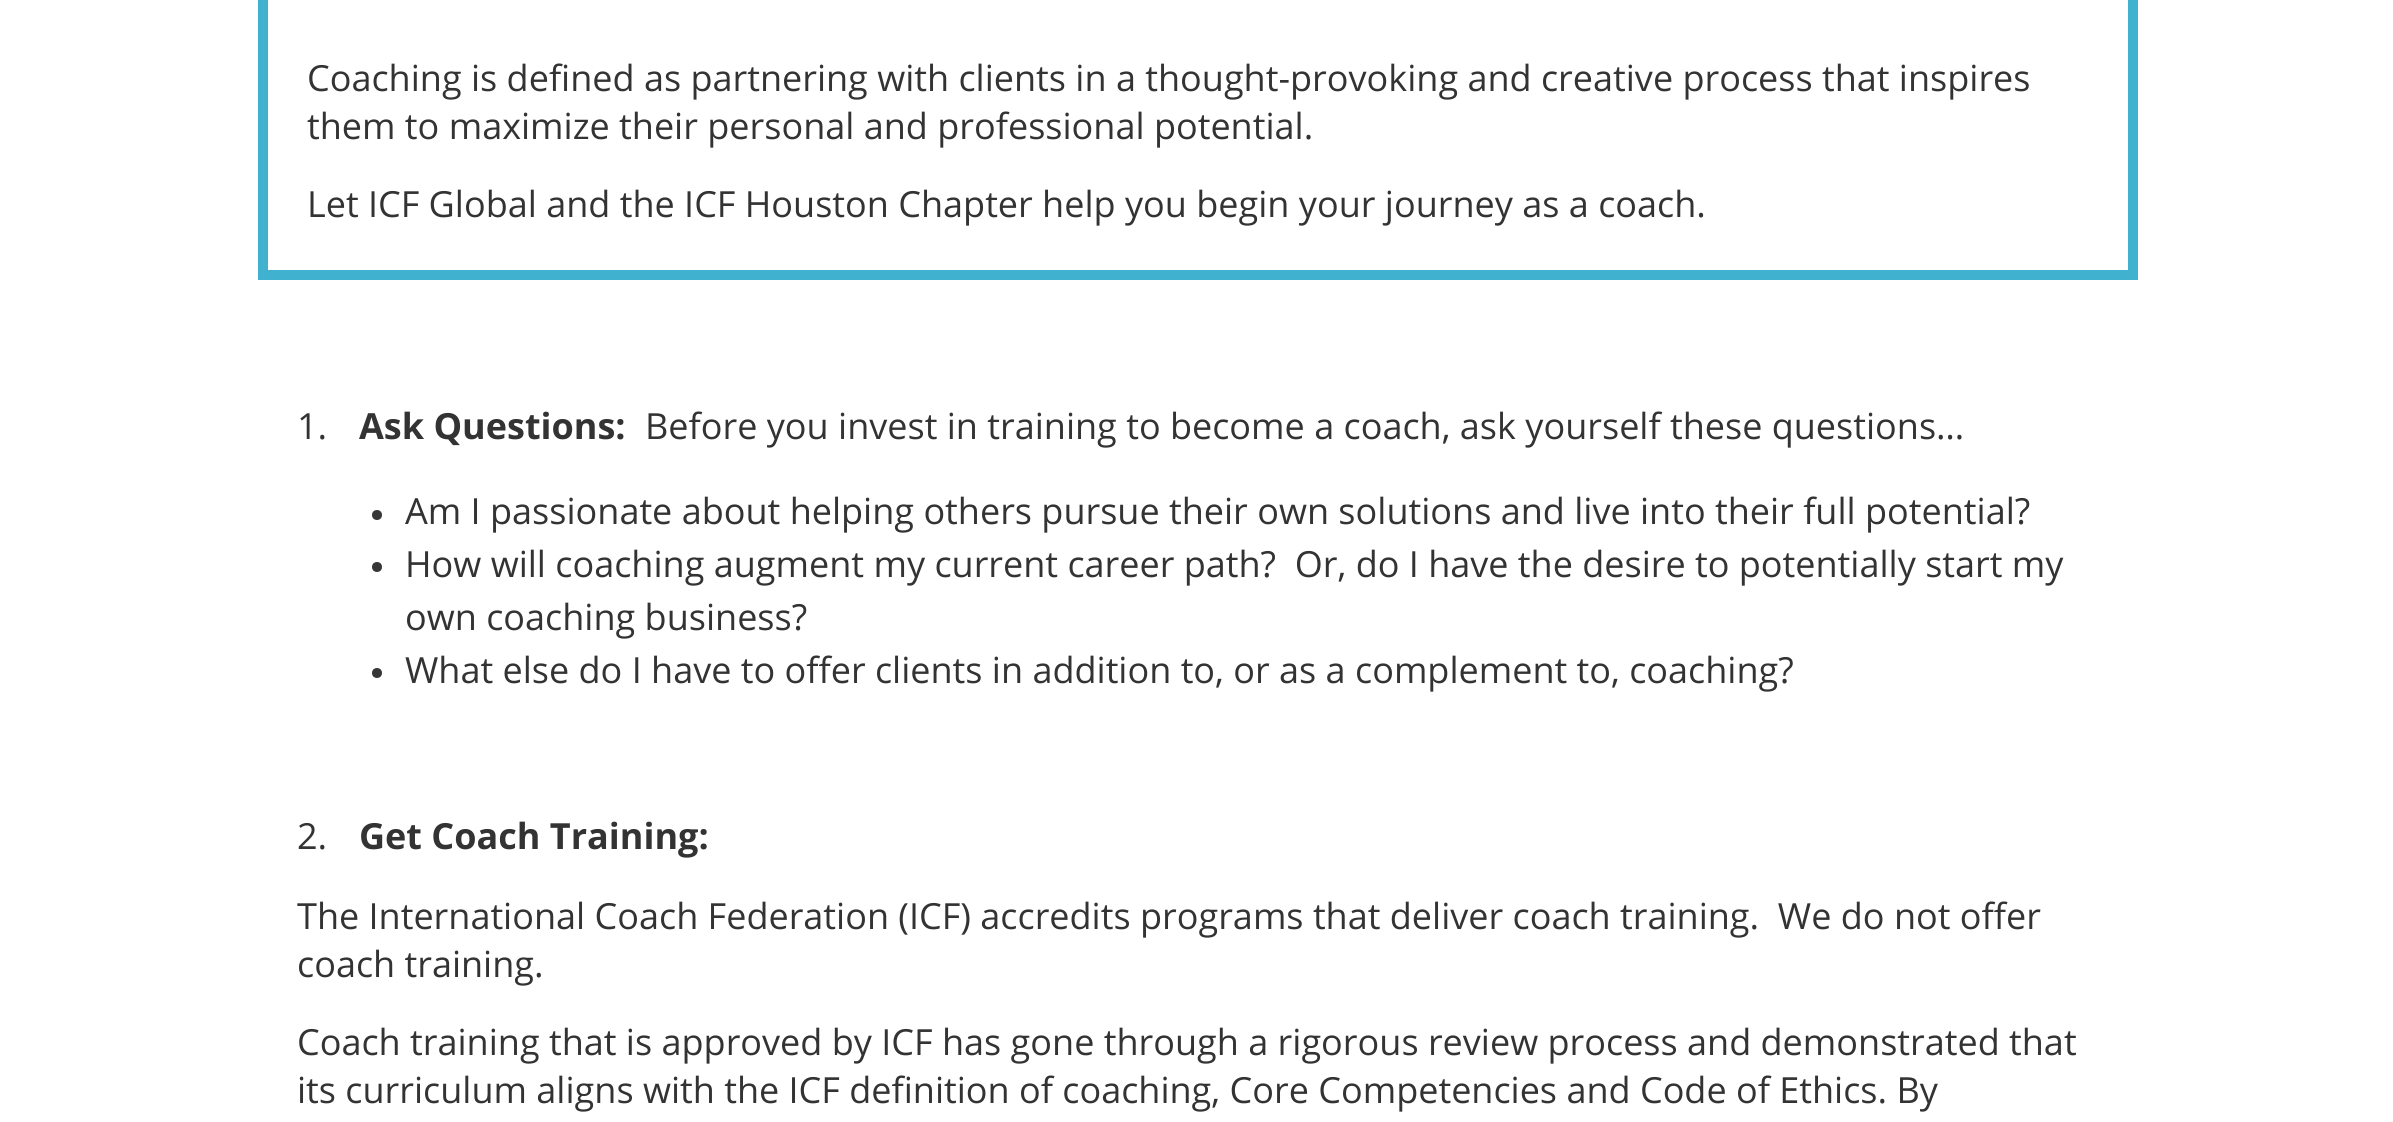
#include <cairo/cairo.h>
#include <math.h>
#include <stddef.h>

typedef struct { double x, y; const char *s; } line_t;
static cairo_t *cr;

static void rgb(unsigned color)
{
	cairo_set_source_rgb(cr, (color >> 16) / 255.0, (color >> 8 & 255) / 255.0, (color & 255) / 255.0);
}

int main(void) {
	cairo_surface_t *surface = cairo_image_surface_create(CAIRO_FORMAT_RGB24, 2393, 1122);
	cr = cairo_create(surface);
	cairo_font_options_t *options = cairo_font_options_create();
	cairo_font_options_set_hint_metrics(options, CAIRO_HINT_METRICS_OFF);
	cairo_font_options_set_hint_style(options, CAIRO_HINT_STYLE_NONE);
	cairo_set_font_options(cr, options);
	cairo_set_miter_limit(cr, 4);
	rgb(0xffffff);
	cairo_paint(cr);
	cairo_rectangle(cr, 263, -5, 1870, 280);
	rgb(0x40b2cf);
	cairo_set_line_width(cr, 10);
	cairo_stroke(cr);
	rgb(0x373737);
	cairo_arc(cr, 377, 515, 5, 0, 2 * M_PI);
	cairo_fill(cr);
	cairo_arc(cr, 377, 567, 5, 0, 2 * M_PI);
	cairo_fill(cr);
	cairo_arc(cr, 377, 673, 5, 0, 2 * M_PI);
	cairo_fill(cr);
	cairo_select_font_face(cr, "Open Sans", CAIRO_FONT_SLANT_NORMAL, CAIRO_FONT_WEIGHT_NORMAL);
	cairo_set_font_size(cr, 36);
	rgb(0x333333);
	{
		static const line_t items[] = {
			{307, 91, "Coaching is defined as partnering with clients in a thought-provoking and creative process that inspires"},
			{307, 139, "them to maximize their personal and professional potential."},
			{307, 217, "Let ICF Global and the ICF Houston Chapter help you begin your journey as a coach."},
			{297, 439, "1."},
		};
		for (size_t i = 0; i < sizeof items / sizeof *items; i++) {
			cairo_move_to(cr, items[i].x, items[i].y);
			cairo_show_text(cr, items[i].s);
		}
	}
	cairo_select_font_face(cr, "Open Sans", CAIRO_FONT_SLANT_NORMAL, CAIRO_FONT_WEIGHT_BOLD);
	cairo_move_to(cr, 359, 439);
	cairo_show_text(cr, "Ask Questions:");
	cairo_select_font_face(cr, "Open Sans", CAIRO_FONT_SLANT_NORMAL, CAIRO_FONT_WEIGHT_NORMAL);
	{
		static const line_t items[] = {
			{645, 439, "Before you invest in training to become a coach, ask yourself these questions…"},
			{405, 524, "Am I passionate about helping others pursue their own solutions and live into their full potential?"},
			{405, 577, "How will coaching augment my current career path?  Or, do I have the desire to potentially start my"},
			{405, 630, "own coaching business?"},
			{405, 683, "What else do I have to offer clients in addition to, or as a complement to, coaching?"},
			{297, 849, "2."},
		};
		for (size_t i = 0; i < sizeof items / sizeof *items; i++) {
			cairo_move_to(cr, items[i].x, items[i].y);
			cairo_show_text(cr, items[i].s);
		}
	}
	cairo_select_font_face(cr, "Open Sans", CAIRO_FONT_SLANT_NORMAL, CAIRO_FONT_WEIGHT_BOLD);
	cairo_move_to(cr, 359, 849);
	cairo_show_text(cr, "Get Coach Training:");
	cairo_select_font_face(cr, "Open Sans", CAIRO_FONT_SLANT_NORMAL, CAIRO_FONT_WEIGHT_NORMAL);
	{
		static const line_t items[] = {
			{297, 929, "The International Coach Federation (ICF) accredits programs that deliver coach training.  We do not offer"},
			{297, 977, "coach training."},
			{297, 1055, "Coach training that is approved by ICF has gone through a rigorous review process and demonstrated that"},
			{297, 1103, "its curriculum aligns with the ICF definition of coaching, Core Competencies and Code of Ethics. By"},
		};
		for (size_t i = 0; i < sizeof items / sizeof *items; i++) {
			cairo_move_to(cr, items[i].x, items[i].y);
			cairo_show_text(cr, items[i].s);
		}
	}
	cairo_surface_write_to_png(surface, "page.png");
	cairo_font_options_destroy(options);
	cairo_destroy(cr);
	cairo_surface_destroy(surface);
	return 0;
}
